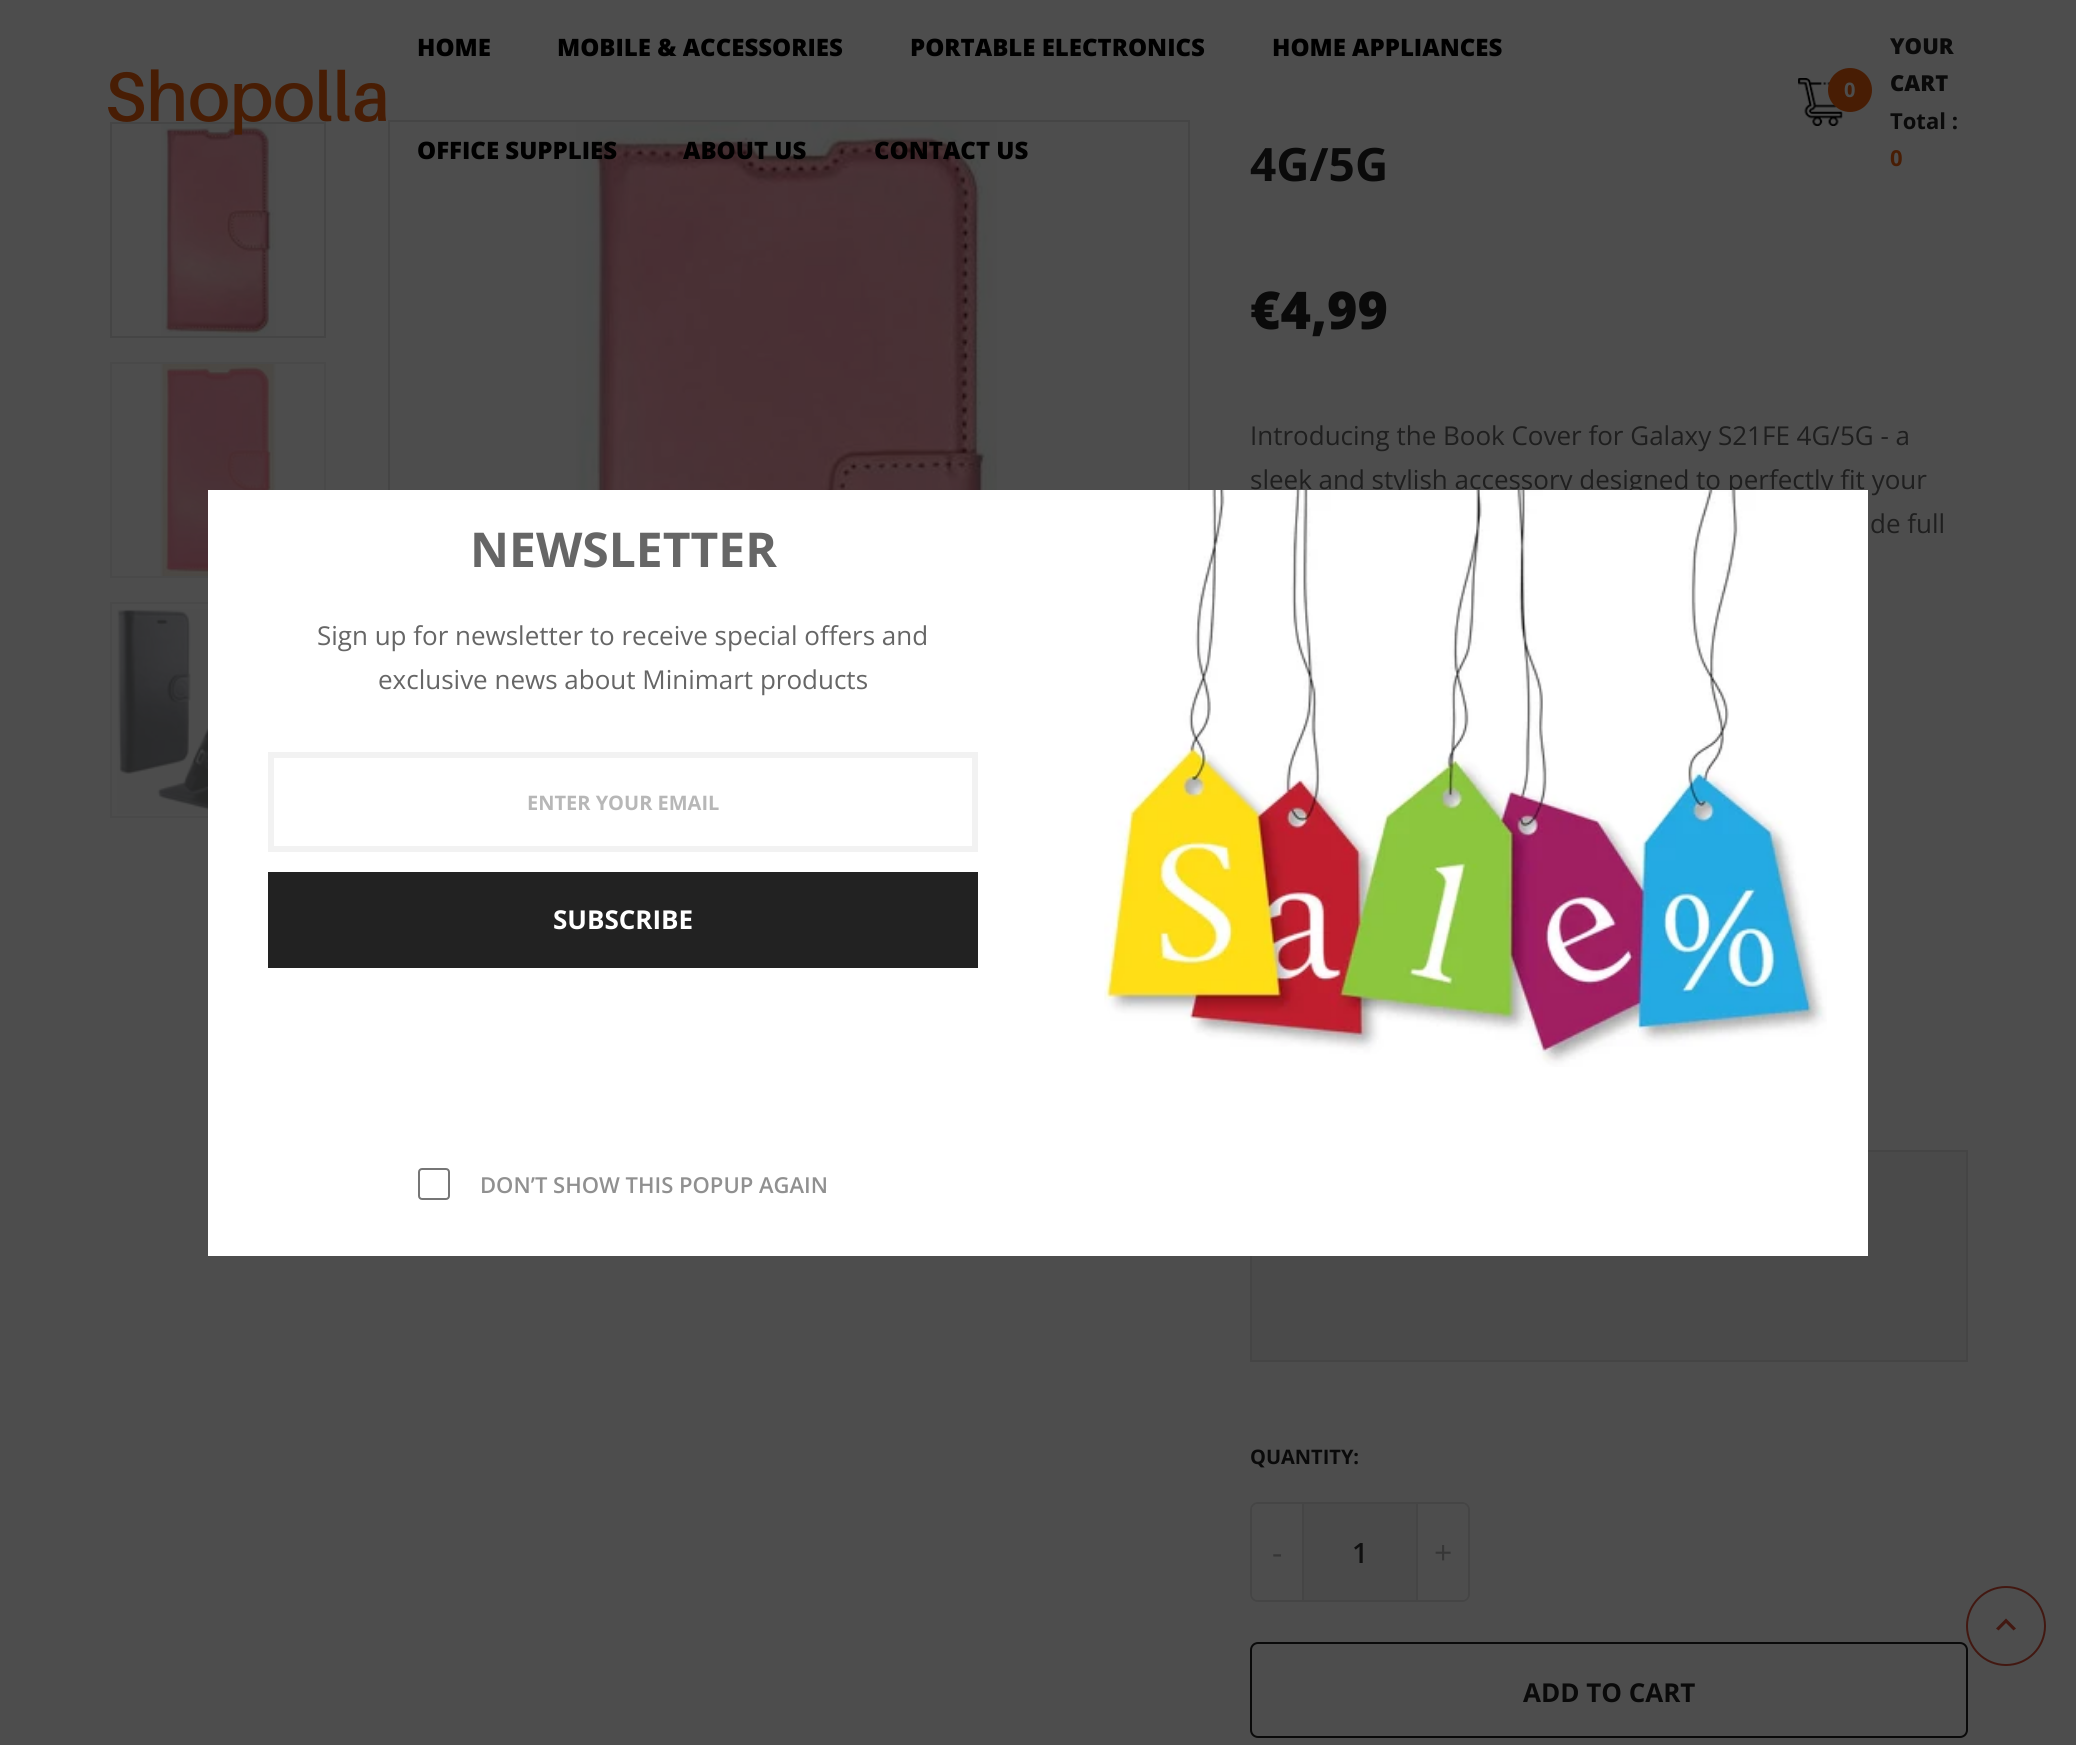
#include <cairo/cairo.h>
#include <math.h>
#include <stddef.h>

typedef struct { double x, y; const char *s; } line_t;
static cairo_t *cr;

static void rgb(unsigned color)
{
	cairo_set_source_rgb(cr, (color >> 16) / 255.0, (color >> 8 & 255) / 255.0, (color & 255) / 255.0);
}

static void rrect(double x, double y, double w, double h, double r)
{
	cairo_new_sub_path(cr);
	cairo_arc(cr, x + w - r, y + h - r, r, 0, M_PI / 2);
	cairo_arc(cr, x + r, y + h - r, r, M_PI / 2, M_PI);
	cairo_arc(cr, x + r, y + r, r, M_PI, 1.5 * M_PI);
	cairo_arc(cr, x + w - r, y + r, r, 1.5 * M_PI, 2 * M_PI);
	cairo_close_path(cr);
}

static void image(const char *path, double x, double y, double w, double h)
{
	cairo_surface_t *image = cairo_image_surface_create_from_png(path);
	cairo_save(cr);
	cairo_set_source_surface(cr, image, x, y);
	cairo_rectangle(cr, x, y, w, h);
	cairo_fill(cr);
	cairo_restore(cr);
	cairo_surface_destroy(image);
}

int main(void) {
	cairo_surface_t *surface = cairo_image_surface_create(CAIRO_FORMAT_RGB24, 2076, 1745);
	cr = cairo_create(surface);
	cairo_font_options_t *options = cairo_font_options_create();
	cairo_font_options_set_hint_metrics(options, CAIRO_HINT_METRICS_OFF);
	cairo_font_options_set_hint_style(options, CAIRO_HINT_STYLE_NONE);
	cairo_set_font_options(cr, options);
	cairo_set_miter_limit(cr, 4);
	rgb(0x4d4d4d);
	cairo_paint(cr);
	cairo_rectangle(cr, 111, 123, 214, 214);
	rgb(0x454545);
	cairo_stroke(cr);
	image("img/4.png", 161, 124, 115, 212);
	image("img/1.png", 108, 69, 278, 66);
	image("img/2.png", 1798, 78, 45, 48);
	rgb(0x481d04);
	cairo_arc(cr, 1850, 90, 22, 0, 2 * M_PI);
	cairo_fill(cr);
	cairo_rectangle(cr, 111, 363, 214, 214);
	rgb(0x494949);
	cairo_stroke(cr);
	image("img/5.png", 160, 364, 116, 212);
	cairo_rectangle(cr, 111, 603, 214, 214);
	cairo_stroke(cr);
	image("img/6.png", 117, 609, 91, 205);
	cairo_rectangle(cr, 389, 121, 800, 812);
	rgb(0x454545);
	cairo_stroke(cr);
	image("img/7.png", 576, 122, 421, 368);
	rgb(0x4a4a4a);
	cairo_rectangle(cr, 1251, 1151, 716, 210);
	cairo_fill_preserve(cr);
	rgb(0x454545);
	cairo_stroke(cr);
	rrect(1251, 1503, 218, 98, 7);
	cairo_stroke(cr);
	rgb(0x4a4a4a);
	rrect(1252, 1504, 216, 96, 6);
	cairo_fill(cr);
	rgb(0x4d4d4d);
	cairo_new_path(cr);
	cairo_move_to(cr, 1258, 1504);
	cairo_line_to(cr, 1304, 1504);
	cairo_line_to(cr, 1304, 1600);
	cairo_line_to(cr, 1258, 1600);
	cairo_curve_to(cr, 1254.5, 1600, 1252, 1597.5, 1252, 1594);
	cairo_line_to(cr, 1252, 1510);
	cairo_curve_to(cr, 1252, 1506.5, 1254.5, 1504, 1258, 1504);
	cairo_close_path(cr);
	cairo_fill(cr);
	rgb(0x454545);
	cairo_rectangle(cr, 1302, 1504, 2, 96);
	cairo_fill(cr);
	rgb(0x4d4d4d);
	cairo_new_path(cr);
	cairo_move_to(cr, 1416, 1504);
	cairo_line_to(cr, 1462, 1504);
	cairo_curve_to(cr, 1465.5, 1504, 1468, 1506.5, 1468, 1510);
	cairo_line_to(cr, 1468, 1594);
	cairo_curve_to(cr, 1468, 1597.5, 1465.5, 1600, 1462, 1600);
	cairo_line_to(cr, 1416, 1600);
	cairo_close_path(cr);
	cairo_fill(cr);
	rgb(0x454545);
	cairo_rectangle(cr, 1416, 1504, 2, 96);
	cairo_fill(cr);
	rrect(1251, 1643, 716, 94, 7);
	rgb(0x0a0a0a);
	cairo_stroke(cr);
	cairo_arc(cr, 2006, 1626, 39, 0, 2 * M_PI);
	rgb(0x421811);
	cairo_stroke(cr);
	cairo_new_path(cr);
	cairo_move_to(cr, 2006, 1618.5);
	cairo_line_to(cr, 2016, 1628.5);
	cairo_line_to(cr, 2013.5, 1630.5);
	cairo_line_to(cr, 2006, 1623);
	cairo_line_to(cr, 1998.5, 1630.5);
	cairo_line_to(cr, 1996, 1628.5);
	cairo_close_path(cr);
	cairo_fill(cr);
	cairo_select_font_face(cr, "Open Sans ExtraBold", CAIRO_FONT_SLANT_NORMAL, CAIRO_FONT_WEIGHT_NORMAL);
	cairo_set_font_size(cr, 24);
	rgb(0x000000);
	{
		static const line_t items[] = {
			{417, 56, "HOME"},
			{557, 56, "MOBILE & ACCESSORIES"},
			{910, 56, "PORTABLE ELECTRONICS"},
			{1272, 56, "HOME APPLIANCES"},
			{417, 159, "OFFICE SUPPLIES"},
			{683, 159, "ABOUT US"},
			{874, 159, "CONTACT US"},
		};
		for (size_t i = 0; i < sizeof items / sizeof *items; i++) {
			cairo_move_to(cr, items[i].x, items[i].y);
			cairo_show_text(cr, items[i].s);
		}
	}
	cairo_select_font_face(cr, "Open Sans", CAIRO_FONT_SLANT_NORMAL, CAIRO_FONT_WEIGHT_BOLD);
	cairo_set_font_size(cr, 20);
	rgb(0x4d4d4d);
	cairo_move_to(cr, 1844, 97);
	cairo_show_text(cr, "0");
	cairo_select_font_face(cr, "Open Sans ExtraBold", CAIRO_FONT_SLANT_NORMAL, CAIRO_FONT_WEIGHT_NORMAL);
	cairo_set_font_size(cr, 22);
	rgb(0x0a0a0a);
	cairo_move_to(cr, 1890, 54);
	cairo_show_text(cr, "YOUR");
	cairo_move_to(cr, 1890, 91);
	cairo_show_text(cr, "CART");
	cairo_select_font_face(cr, "Open Sans", CAIRO_FONT_SLANT_NORMAL, CAIRO_FONT_WEIGHT_BOLD);
	cairo_move_to(cr, 1890, 129);
	cairo_show_text(cr, "Total :");
	rgb(0x481d04);
	cairo_move_to(cr, 1890, 166);
	cairo_show_text(cr, "0");
	cairo_set_font_size(cr, 46);
	rgb(0x0a0a0a);
	cairo_move_to(cr, 1250, 181);
	cairo_show_text(cr, "4G/5G");
	cairo_select_font_face(cr, "Open Sans ExtraBold", CAIRO_FONT_SLANT_NORMAL, CAIRO_FONT_WEIGHT_NORMAL);
	cairo_set_font_size(cr, 52);
	cairo_move_to(cr, 1250, 329);
	cairo_show_text(cr, "€4,99");
	cairo_select_font_face(cr, "Open Sans", CAIRO_FONT_SLANT_NORMAL, CAIRO_FONT_WEIGHT_NORMAL);
	cairo_set_font_size(cr, 26);
	rgb(0x1f1f1f);
	cairo_move_to(cr, 1250, 445);
	cairo_show_text(cr, "Introducing the Book Cover for Galaxy S21FE 4G/5G - a");
	cairo_move_to(cr, 1250, 489);
	cairo_show_text(cr, "sleek and stylish accessory designed to perfectly fit your");
	rgb(0xffffff);
	cairo_rectangle(cr, 208, 490, 1660, 766);
	cairo_fill(cr);
	image("img/3.png", 1104, 490, 723, 577);
	rgb(0x222222);
	cairo_rectangle(cr, 268, 872, 710, 96);
	cairo_fill(cr);
	cairo_select_font_face(cr, "Open Sans", CAIRO_FONT_SLANT_NORMAL, CAIRO_FONT_WEIGHT_BOLD);
	rgb(0xffffff);
	cairo_move_to(cr, 553, 929);
	cairo_show_text(cr, "SUBSCRIBE");
	cairo_select_font_face(cr, "Open Sans SemiBold", CAIRO_FONT_SLANT_NORMAL, CAIRO_FONT_WEIGHT_NORMAL);
	cairo_set_font_size(cr, 22);
	rgb(0x909090);
	cairo_move_to(cr, 480, 1193);
	cairo_show_text(cr, "DON’T SHOW THIS POPUP AGAIN");
	rrect(419, 1169, 30, 30, 3);
	rgb(0x767676);
	cairo_stroke(cr);
	cairo_rectangle(cr, 271, 755, 704, 94);
	rgb(0xf2f2f2);
	cairo_set_line_width(cr, 6);
	cairo_stroke(cr);
	cairo_select_font_face(cr, "Open Sans", CAIRO_FONT_SLANT_NORMAL, CAIRO_FONT_WEIGHT_BOLD);
	cairo_set_font_size(cr, 20);
	rgb(0xb7b7b7);
	cairo_move_to(cr, 527, 810);
	cairo_show_text(cr, "ENTER YOUR EMAIL");
	cairo_select_font_face(cr, "Open Sans", CAIRO_FONT_SLANT_NORMAL, CAIRO_FONT_WEIGHT_NORMAL);
	cairo_set_font_size(cr, 26);
	rgb(0x666666);
	cairo_move_to(cr, 378, 689);
	cairo_show_text(cr, "exclusive news about Minimart products");
	cairo_move_to(cr, 317, 645);
	cairo_show_text(cr, "Sign up for newsletter to receive special offers and");
	cairo_select_font_face(cr, "Open Sans", CAIRO_FONT_SLANT_NORMAL, CAIRO_FONT_WEIGHT_BOLD);
	cairo_set_font_size(cr, 48);
	cairo_move_to(cr, 470, 567);
	cairo_show_text(cr, "NEWSLETTER");
	cairo_select_font_face(cr, "Open Sans", CAIRO_FONT_SLANT_NORMAL, CAIRO_FONT_WEIGHT_NORMAL);
	cairo_set_font_size(cr, 26);
	rgb(0x1f1f1f);
	cairo_move_to(cr, 1870, 533);
	cairo_show_text(cr, "de full");
	cairo_select_font_face(cr, "Open Sans", CAIRO_FONT_SLANT_NORMAL, CAIRO_FONT_WEIGHT_BOLD);
	cairo_set_font_size(cr, 20);
	rgb(0x0a0a0a);
	cairo_move_to(cr, 1250, 1464);
	cairo_show_text(cr, "QUANTITY:");
	cairo_select_font_face(cr, "Open Sans", CAIRO_FONT_SLANT_NORMAL, CAIRO_FONT_WEIGHT_NORMAL);
	cairo_set_font_size(cr, 32);
	rgb(0x363636);
	cairo_move_to(cr, 1272, 1564);
	cairo_show_text(cr, "-");
	cairo_select_font_face(cr, "Open Sans SemiBold", CAIRO_FONT_SLANT_NORMAL, CAIRO_FONT_WEIGHT_NORMAL);
	cairo_set_font_size(cr, 28);
	rgb(0x101010);
	cairo_move_to(cr, 1352, 1563);
	cairo_show_text(cr, "1");
	cairo_select_font_face(cr, "Open Sans", CAIRO_FONT_SLANT_NORMAL, CAIRO_FONT_WEIGHT_NORMAL);
	cairo_set_font_size(cr, 32);
	rgb(0x363636);
	cairo_move_to(cr, 1434, 1564);
	cairo_show_text(cr, "+");
	cairo_select_font_face(cr, "Open Sans", CAIRO_FONT_SLANT_NORMAL, CAIRO_FONT_WEIGHT_BOLD);
	cairo_set_font_size(cr, 26);
	rgb(0x0a0a0a);
	cairo_move_to(cr, 1523, 1702);
	cairo_show_text(cr, "ADD TO CART");
	cairo_surface_write_to_png(surface, "page.png");
	cairo_font_options_destroy(options);
	cairo_destroy(cr);
	cairo_surface_destroy(surface);
	return 0;
}
